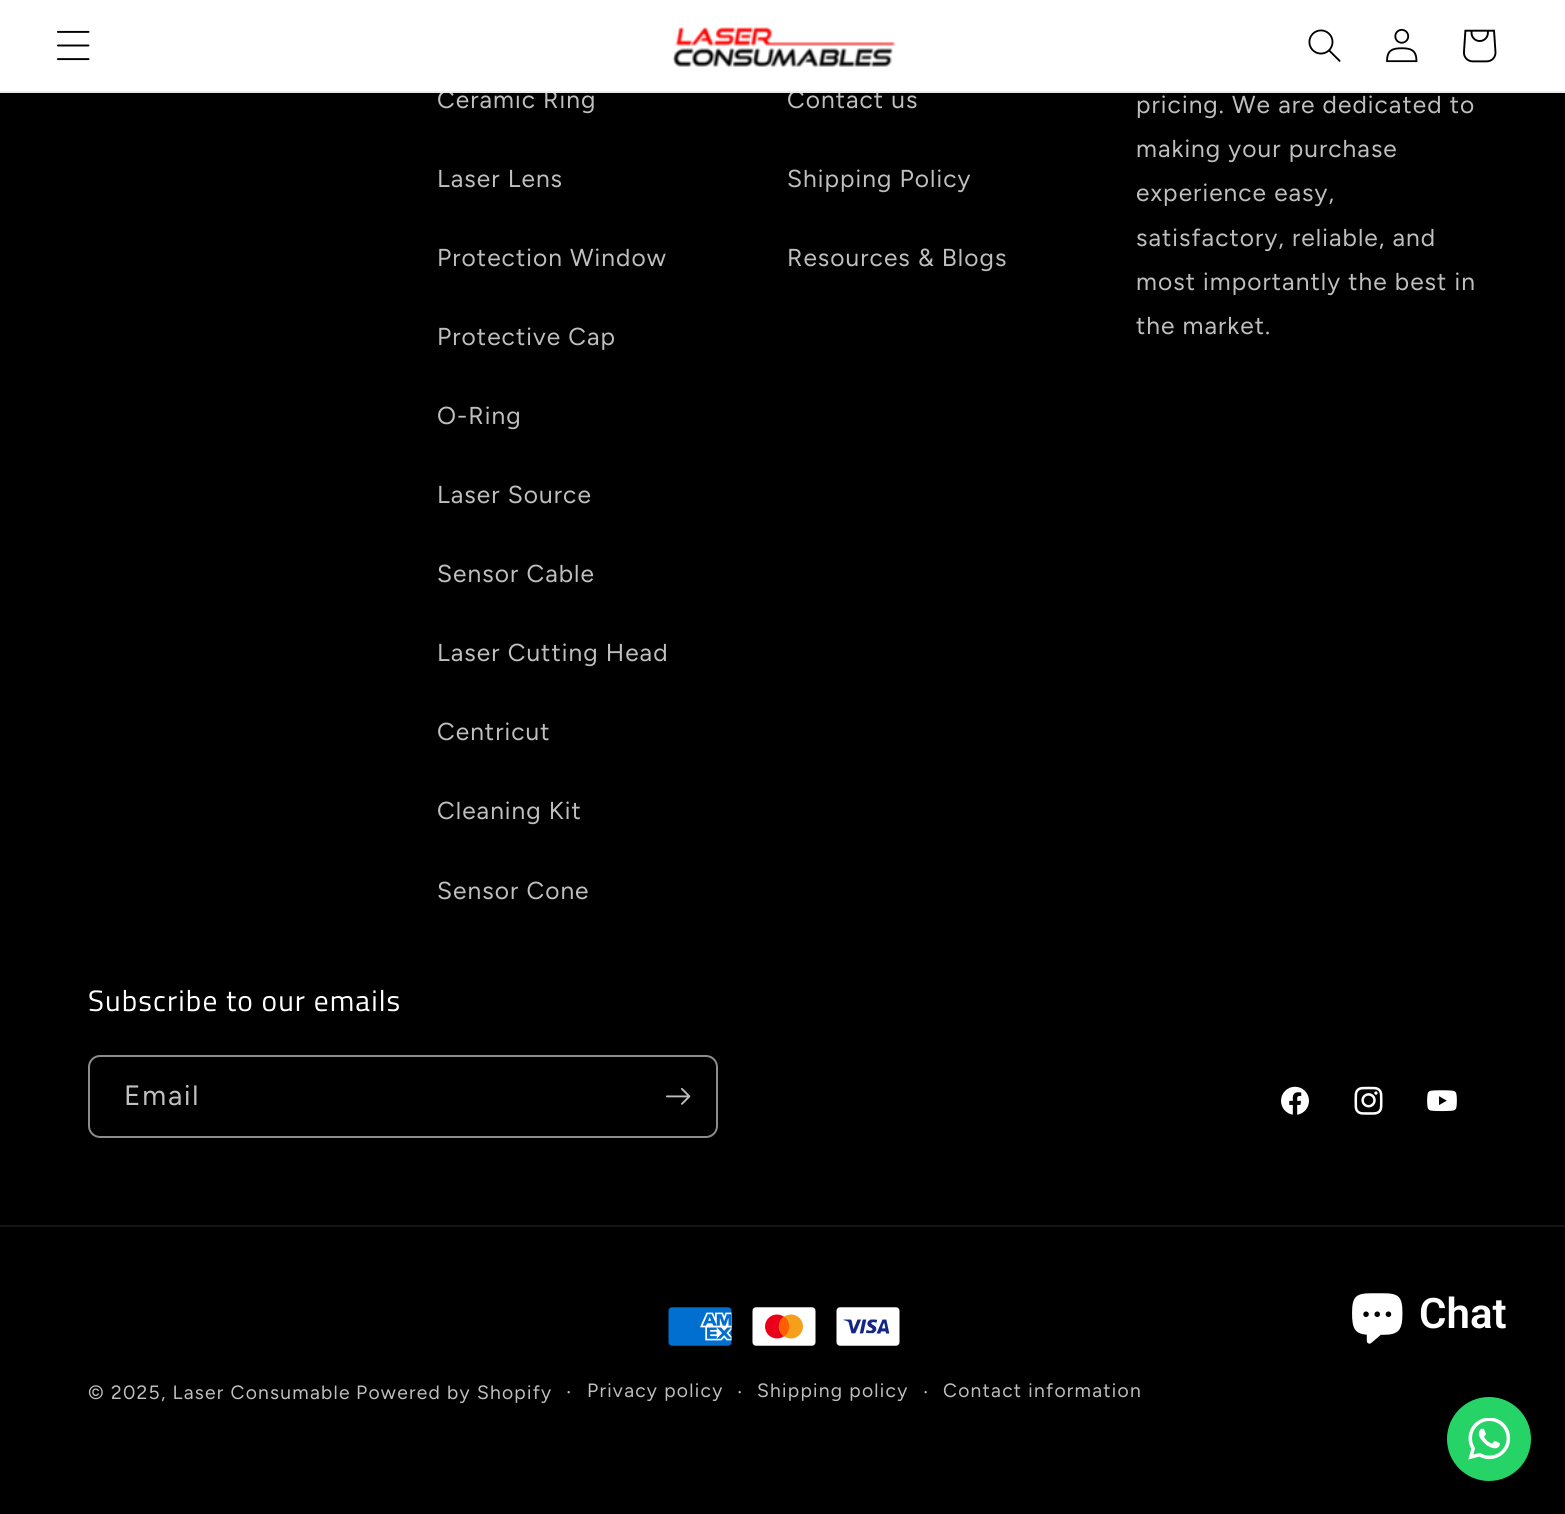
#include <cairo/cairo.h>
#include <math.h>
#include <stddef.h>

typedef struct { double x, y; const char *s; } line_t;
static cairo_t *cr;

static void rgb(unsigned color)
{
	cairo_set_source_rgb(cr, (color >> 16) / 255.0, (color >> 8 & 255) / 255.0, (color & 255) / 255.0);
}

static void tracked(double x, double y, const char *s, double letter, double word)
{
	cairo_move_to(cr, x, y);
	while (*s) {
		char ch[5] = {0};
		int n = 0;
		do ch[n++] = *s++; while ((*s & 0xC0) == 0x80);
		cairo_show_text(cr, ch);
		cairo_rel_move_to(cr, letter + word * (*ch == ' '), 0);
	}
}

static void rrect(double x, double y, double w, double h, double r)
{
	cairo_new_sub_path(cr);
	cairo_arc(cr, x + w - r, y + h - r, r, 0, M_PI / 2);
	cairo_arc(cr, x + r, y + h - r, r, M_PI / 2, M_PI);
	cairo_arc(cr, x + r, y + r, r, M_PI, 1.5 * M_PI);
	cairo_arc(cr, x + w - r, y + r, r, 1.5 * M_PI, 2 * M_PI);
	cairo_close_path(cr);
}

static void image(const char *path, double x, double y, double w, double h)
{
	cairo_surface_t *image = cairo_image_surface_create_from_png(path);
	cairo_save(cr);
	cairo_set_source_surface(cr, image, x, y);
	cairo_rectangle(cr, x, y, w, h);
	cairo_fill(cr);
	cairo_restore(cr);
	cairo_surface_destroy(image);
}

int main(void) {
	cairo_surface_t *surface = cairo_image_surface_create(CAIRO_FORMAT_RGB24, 1565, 1514);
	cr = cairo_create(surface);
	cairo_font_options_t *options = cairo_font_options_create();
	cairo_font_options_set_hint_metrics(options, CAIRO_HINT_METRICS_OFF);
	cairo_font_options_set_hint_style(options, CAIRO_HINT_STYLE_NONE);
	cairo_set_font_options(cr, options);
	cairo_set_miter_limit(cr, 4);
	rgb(0x000000);
	cairo_paint(cr);
	rrect(89, 1056, 628, 81, 11);
	rgb(0x8c8c8c);
	cairo_stroke(cr);
	image("img/6.png", 666, 1088, 25, 17);
	image("img/7.png", 1281, 1086, 28, 29);
	image("img/8.png", 1354, 1086, 29, 29);
	image("img/9.png", 1427, 1090, 30, 22);
	rgb(0x141414);
	cairo_rectangle(cr, 0, 1225, 1565, 2);
	cairo_fill(cr);
	image("img/10.png", 668, 1307, 64, 39);
	image("img/11.png", 752, 1307, 64, 39);
	image("img/12.png", 836, 1307, 64, 39);
	image("img/13.png", 1352, 1293, 51, 51);
	rgb(0x25d366);
	cairo_arc(cr, 1489, 1439, 42, 0, 2 * M_PI);
	cairo_fill(cr);
	image("img/14.png", 1468, 1418, 42, 42);
	cairo_select_font_face(cr, "Figtree", CAIRO_FONT_SLANT_NORMAL, CAIRO_FONT_WEIGHT_NORMAL);
	cairo_set_font_size(cr, 24.5);
	rgb(0xbfbfbf);
	{
		static const line_t items[] = {
			{437, 108, "Ceramic Ring"},
			{437, 187, "Laser Lens"},
			{437, 266, "Protection Window"},
			{437, 345, "Protective Cap"},
			{437, 424, "O-Ring"},
			{437, 503, "Laser Source"},
			{437, 582, "Sensor Cable"},
			{437, 661, "Laser Cutting Head"},
			{437, 740, "Centricut"},
			{437, 819, "Cleaning Kit"},
			{437, 899, "Sensor Cone"},
			{787, 108, "Contact us"},
		};
		for (size_t i = 0; i < sizeof items / sizeof *items; i++) {
			tracked(items[i].x, items[i].y, items[i].s, 1.05, 0);
		}
	}
	rgb(0xffffff);
	cairo_rectangle(cr, 0, 0, 1565, 91);
	cairo_fill(cr);
	image("img/5.png", 1463, 29, 34, 34);
	image("img/3.png", 1308, 29, 33, 33);
	image("img/1.png", 57, 30, 33, 31);
	image("img/4.png", 1386, 28, 32, 35);
	image("img/2.png", 672, 27, 224, 40);
	rgb(0xebebeb);
	cairo_rectangle(cr, 0, 91, 1565, 2);
	cairo_fill(cr);
	rgb(0xbfbfbf);
	{
		static const line_t items[] = {
			{787, 187, "Shipping Policy"},
			{787, 266, "Resources & Blogs"},
			{1136, 113, "pricing. We are dedicated to"},
			{1136, 157, "making your purchase"},
			{1136, 201, "experience easy,"},
			{1136, 246, "satisfactory, reliable, and"},
			{1136, 290, "most importantly the best in"},
			{1136, 334, "the market."},
		};
		for (size_t i = 0; i < sizeof items / sizeof *items; i++) {
			tracked(items[i].x, items[i].y, items[i].s, 1.05, 0);
		}
	}
	cairo_select_font_face(cr, "Titillium Web", CAIRO_FONT_SLANT_NORMAL, CAIRO_FONT_WEIGHT_NORMAL);
	cairo_set_font_size(cr, 29.4);
	rgb(0xffffff);
	tracked(88, 1011, "Subscribe to our emails", 1.1, 0);
	cairo_select_font_face(cr, "Figtree", CAIRO_FONT_SLANT_NORMAL, CAIRO_FONT_WEIGHT_NORMAL);
	cairo_set_font_size(cr, 28);
	rgb(0xbfbfbf);
	tracked(124, 1105, "Email", 1.75, 0);
	cairo_set_font_size(cr, 19.25);
	tracked(88, 1399, "© 2025, Laser Consumable", 1.25, 0);
	tracked(356, 1399, "Powered by Shopify", 1.25, 0);
	cairo_set_font_size(cr, 21);
	tracked(566, 1399, "·", 1.25, 0);
	cairo_set_font_size(cr, 19.25);
	tracked(587, 1397, "Privacy policy", 1.25, 0);
	cairo_set_font_size(cr, 21);
	tracked(737, 1399, "·", 1.25, 0);
	cairo_set_font_size(cr, 19.25);
	tracked(757, 1397, "Shipping policy", 1.25, 0);
	cairo_set_font_size(cr, 21);
	tracked(923, 1399, "·", 1.25, 0);
	cairo_set_font_size(cr, 19.25);
	tracked(943, 1397, "Contact information", 1.25, 0);
	cairo_select_font_face(cr, "Roboto SemiBold", CAIRO_FONT_SLANT_NORMAL, CAIRO_FONT_WEIGHT_NORMAL);
	cairo_set_font_size(cr, 42);
	rgb(0xffffff);
	cairo_move_to(cr, 1419, 1328);
	cairo_show_text(cr, "Chat");
	cairo_surface_write_to_png(surface, "page.png");
	cairo_font_options_destroy(options);
	cairo_destroy(cr);
	cairo_surface_destroy(surface);
	return 0;
}
